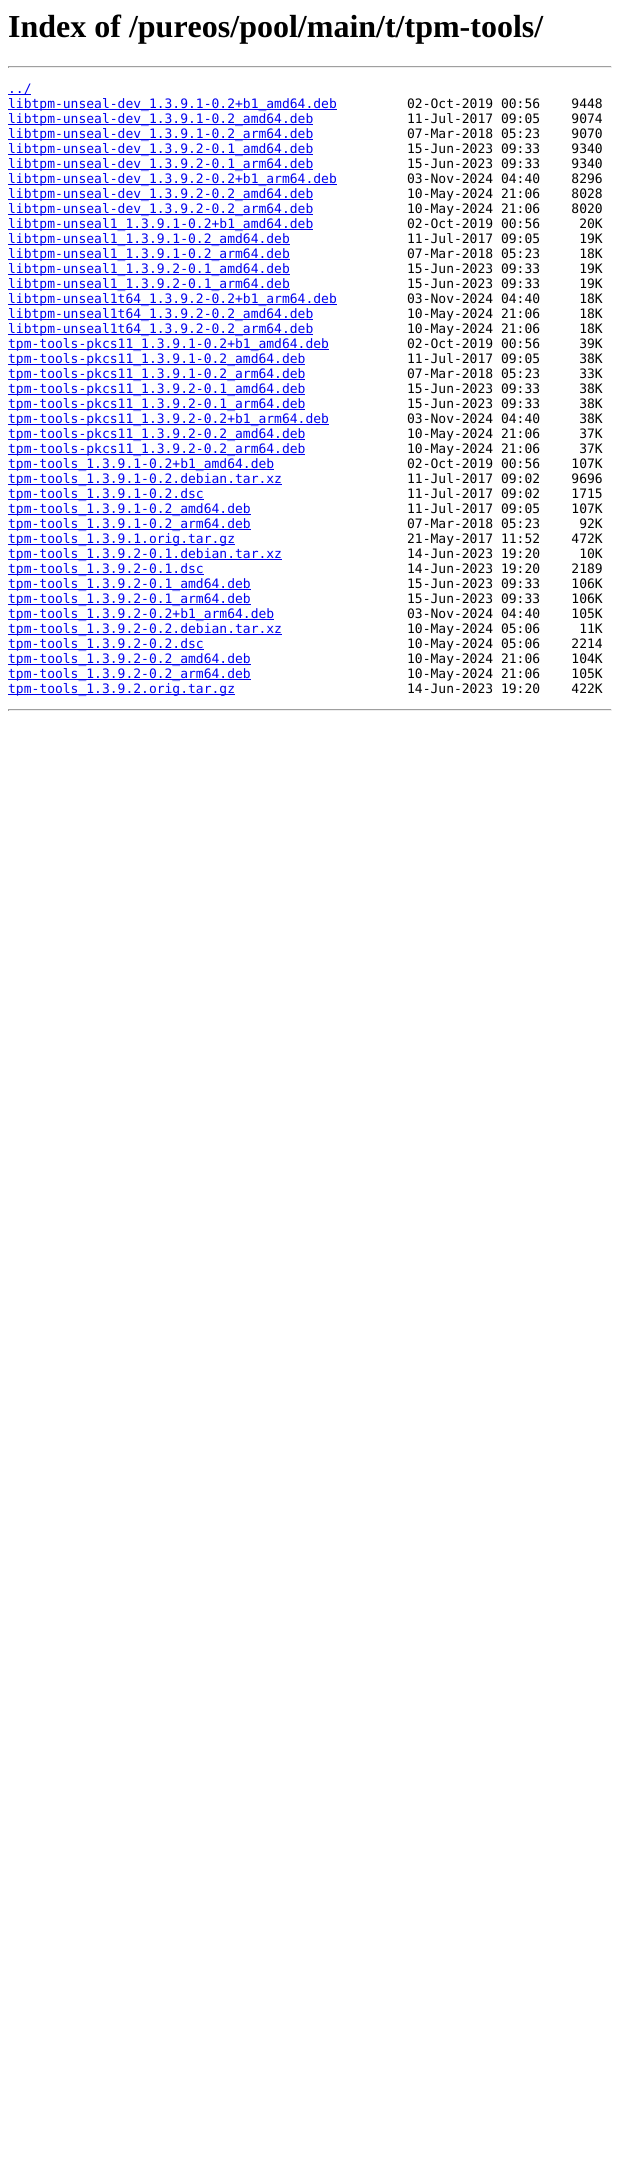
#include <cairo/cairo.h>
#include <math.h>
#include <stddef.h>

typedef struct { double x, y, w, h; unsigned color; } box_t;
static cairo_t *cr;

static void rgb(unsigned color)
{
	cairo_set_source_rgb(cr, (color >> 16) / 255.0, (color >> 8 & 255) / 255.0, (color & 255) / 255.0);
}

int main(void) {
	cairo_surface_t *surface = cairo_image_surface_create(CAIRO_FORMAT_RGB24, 620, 2176);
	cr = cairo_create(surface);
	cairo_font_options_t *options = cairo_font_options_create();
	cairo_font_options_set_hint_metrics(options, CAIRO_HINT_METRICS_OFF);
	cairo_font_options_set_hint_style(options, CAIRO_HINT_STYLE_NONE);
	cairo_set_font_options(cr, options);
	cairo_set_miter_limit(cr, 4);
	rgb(0xffffff);
	cairo_paint(cr);
	{
		static const box_t items[] = {
			{8, 66, 604, 1, 0x9f9f9f},
			{611, 66, 1, 2, 0xeeeeee},
			{8, 67, 604, 1, 0xeeeeee},
			{8, 66, 1, 2, 0x9f9f9f},
			{8, 94, 23, 1, 0x0000ee},
			{8, 109, 329, 1, 0x0000ee},
			{8, 124, 305, 1, 0x0000ee},
			{8, 139, 305, 1, 0x0000ee},
			{8, 154, 305, 1, 0x0000ee},
			{8, 169, 305, 1, 0x0000ee},
			{8, 184, 329, 1, 0x0000ee},
			{8, 199, 305, 1, 0x0000ee},
			{8, 214, 305, 1, 0x0000ee},
			{8, 229, 305, 1, 0x0000ee},
			{8, 244, 282, 1, 0x0000ee},
			{8, 259, 282, 1, 0x0000ee},
			{8, 274, 282, 1, 0x0000ee},
			{8, 289, 282, 1, 0x0000ee},
			{8, 304, 329, 1, 0x0000ee},
			{8, 319, 305, 1, 0x0000ee},
			{8, 334, 305, 1, 0x0000ee},
			{8, 349, 321, 1, 0x0000ee},
			{8, 364, 297, 1, 0x0000ee},
			{8, 379, 297, 1, 0x0000ee},
			{8, 394, 297, 1, 0x0000ee},
			{8, 409, 297, 1, 0x0000ee},
			{8, 424, 321, 1, 0x0000ee},
			{8, 439, 297, 1, 0x0000ee},
			{8, 454, 297, 1, 0x0000ee},
			{8, 469, 266, 1, 0x0000ee},
			{8, 484, 274, 1, 0x0000ee},
			{8, 499, 196, 1, 0x0000ee},
			{8, 514, 243, 1, 0x0000ee},
			{8, 529, 243, 1, 0x0000ee},
			{8, 544, 227, 1, 0x0000ee},
			{8, 559, 274, 1, 0x0000ee},
			{8, 574, 196, 1, 0x0000ee},
			{8, 589, 243, 1, 0x0000ee},
			{8, 604, 243, 1, 0x0000ee},
			{8, 619, 266, 1, 0x0000ee},
			{8, 634, 274, 1, 0x0000ee},
			{8, 649, 196, 1, 0x0000ee},
			{8, 664, 243, 1, 0x0000ee},
			{8, 679, 243, 1, 0x0000ee},
			{8, 694, 227, 1, 0x0000ee},
			{8, 709, 604, 1, 0x9f9f9f},
			{611, 709, 1, 2, 0xeeeeee},
			{8, 710, 604, 1, 0xeeeeee},
			{8, 709, 1, 2, 0x9f9f9f},
		};
		for (size_t i = 0; i < sizeof items / sizeof *items; i++) {
			rgb(items[i].color);
			cairo_rectangle(cr, items[i].x, items[i].y, items[i].w, items[i].h);
			cairo_fill(cr);
		}
	}
	cairo_select_font_face(cr, "Liberation Serif", CAIRO_FONT_SLANT_NORMAL, CAIRO_FONT_WEIGHT_BOLD);
	cairo_set_font_size(cr, 32);
	rgb(0x000000);
	cairo_move_to(cr, 8, 37);
	cairo_show_text(cr, "Index of /pureos/pool/main/t/tpm-tools/");
	cairo_select_font_face(cr, "DejaVu Sans Mono", CAIRO_FONT_SLANT_NORMAL, CAIRO_FONT_WEIGHT_NORMAL);
	cairo_set_font_size(cr, 13);
	rgb(0x0000ee);
	cairo_move_to(cr, 8, 93);
	cairo_show_text(cr, "../");
	cairo_move_to(cr, 8, 108);
	cairo_show_text(cr, "libtpm-unseal-dev_1.3.9.1-0.2+b1_amd64.deb");
	rgb(0x000000);
	cairo_move_to(cr, 407, 108);
	cairo_show_text(cr, "02-Oct-2019 00:56    9448");
	rgb(0x0000ee);
	cairo_move_to(cr, 8, 123);
	cairo_show_text(cr, "libtpm-unseal-dev_1.3.9.1-0.2_amd64.deb");
	rgb(0x000000);
	cairo_move_to(cr, 407, 123);
	cairo_show_text(cr, "11-Jul-2017 09:05    9074");
	rgb(0x0000ee);
	cairo_move_to(cr, 8, 138);
	cairo_show_text(cr, "libtpm-unseal-dev_1.3.9.1-0.2_arm64.deb");
	rgb(0x000000);
	cairo_move_to(cr, 407, 138);
	cairo_show_text(cr, "07-Mar-2018 05:23    9070");
	rgb(0x0000ee);
	cairo_move_to(cr, 8, 153);
	cairo_show_text(cr, "libtpm-unseal-dev_1.3.9.2-0.1_amd64.deb");
	rgb(0x000000);
	cairo_move_to(cr, 407, 153);
	cairo_show_text(cr, "15-Jun-2023 09:33    9340");
	rgb(0x0000ee);
	cairo_move_to(cr, 8, 168);
	cairo_show_text(cr, "libtpm-unseal-dev_1.3.9.2-0.1_arm64.deb");
	rgb(0x000000);
	cairo_move_to(cr, 407, 168);
	cairo_show_text(cr, "15-Jun-2023 09:33    9340");
	rgb(0x0000ee);
	cairo_move_to(cr, 8, 183);
	cairo_show_text(cr, "libtpm-unseal-dev_1.3.9.2-0.2+b1_arm64.deb");
	rgb(0x000000);
	cairo_move_to(cr, 407, 183);
	cairo_show_text(cr, "03-Nov-2024 04:40    8296");
	rgb(0x0000ee);
	cairo_move_to(cr, 8, 198);
	cairo_show_text(cr, "libtpm-unseal-dev_1.3.9.2-0.2_amd64.deb");
	rgb(0x000000);
	cairo_move_to(cr, 407, 198);
	cairo_show_text(cr, "10-May-2024 21:06    8028");
	rgb(0x0000ee);
	cairo_move_to(cr, 8, 213);
	cairo_show_text(cr, "libtpm-unseal-dev_1.3.9.2-0.2_arm64.deb");
	rgb(0x000000);
	cairo_move_to(cr, 407, 213);
	cairo_show_text(cr, "10-May-2024 21:06    8020");
	rgb(0x0000ee);
	cairo_move_to(cr, 8, 228);
	cairo_show_text(cr, "libtpm-unseal1_1.3.9.1-0.2+b1_amd64.deb");
	rgb(0x000000);
	cairo_move_to(cr, 407, 228);
	cairo_show_text(cr, "02-Oct-2019 00:56     20K");
	rgb(0x0000ee);
	cairo_move_to(cr, 8, 243);
	cairo_show_text(cr, "libtpm-unseal1_1.3.9.1-0.2_amd64.deb");
	rgb(0x000000);
	cairo_move_to(cr, 407, 243);
	cairo_show_text(cr, "11-Jul-2017 09:05     19K");
	rgb(0x0000ee);
	cairo_move_to(cr, 8, 258);
	cairo_show_text(cr, "libtpm-unseal1_1.3.9.1-0.2_arm64.deb");
	rgb(0x000000);
	cairo_move_to(cr, 407, 258);
	cairo_show_text(cr, "07-Mar-2018 05:23     18K");
	rgb(0x0000ee);
	cairo_move_to(cr, 8, 273);
	cairo_show_text(cr, "libtpm-unseal1_1.3.9.2-0.1_amd64.deb");
	rgb(0x000000);
	cairo_move_to(cr, 407, 273);
	cairo_show_text(cr, "15-Jun-2023 09:33     19K");
	rgb(0x0000ee);
	cairo_move_to(cr, 8, 288);
	cairo_show_text(cr, "libtpm-unseal1_1.3.9.2-0.1_arm64.deb");
	rgb(0x000000);
	cairo_move_to(cr, 407, 288);
	cairo_show_text(cr, "15-Jun-2023 09:33     19K");
	rgb(0x0000ee);
	cairo_move_to(cr, 8, 303);
	cairo_show_text(cr, "libtpm-unseal1t64_1.3.9.2-0.2+b1_arm64.deb");
	rgb(0x000000);
	cairo_move_to(cr, 407, 303);
	cairo_show_text(cr, "03-Nov-2024 04:40     18K");
	rgb(0x0000ee);
	cairo_move_to(cr, 8, 318);
	cairo_show_text(cr, "libtpm-unseal1t64_1.3.9.2-0.2_amd64.deb");
	rgb(0x000000);
	cairo_move_to(cr, 407, 318);
	cairo_show_text(cr, "10-May-2024 21:06     18K");
	rgb(0x0000ee);
	cairo_move_to(cr, 8, 333);
	cairo_show_text(cr, "libtpm-unseal1t64_1.3.9.2-0.2_arm64.deb");
	rgb(0x000000);
	cairo_move_to(cr, 407, 333);
	cairo_show_text(cr, "10-May-2024 21:06     18K");
	rgb(0x0000ee);
	cairo_move_to(cr, 8, 348);
	cairo_show_text(cr, "tpm-tools-pkcs11_1.3.9.1-0.2+b1_amd64.deb");
	rgb(0x000000);
	cairo_move_to(cr, 407, 348);
	cairo_show_text(cr, "02-Oct-2019 00:56     39K");
	rgb(0x0000ee);
	cairo_move_to(cr, 8, 363);
	cairo_show_text(cr, "tpm-tools-pkcs11_1.3.9.1-0.2_amd64.deb");
	rgb(0x000000);
	cairo_move_to(cr, 407, 363);
	cairo_show_text(cr, "11-Jul-2017 09:05     38K");
	rgb(0x0000ee);
	cairo_move_to(cr, 8, 378);
	cairo_show_text(cr, "tpm-tools-pkcs11_1.3.9.1-0.2_arm64.deb");
	rgb(0x000000);
	cairo_move_to(cr, 407, 378);
	cairo_show_text(cr, "07-Mar-2018 05:23     33K");
	rgb(0x0000ee);
	cairo_move_to(cr, 8, 393);
	cairo_show_text(cr, "tpm-tools-pkcs11_1.3.9.2-0.1_amd64.deb");
	rgb(0x000000);
	cairo_move_to(cr, 407, 393);
	cairo_show_text(cr, "15-Jun-2023 09:33     38K");
	rgb(0x0000ee);
	cairo_move_to(cr, 8, 408);
	cairo_show_text(cr, "tpm-tools-pkcs11_1.3.9.2-0.1_arm64.deb");
	rgb(0x000000);
	cairo_move_to(cr, 407, 408);
	cairo_show_text(cr, "15-Jun-2023 09:33     38K");
	rgb(0x0000ee);
	cairo_move_to(cr, 8, 423);
	cairo_show_text(cr, "tpm-tools-pkcs11_1.3.9.2-0.2+b1_arm64.deb");
	rgb(0x000000);
	cairo_move_to(cr, 407, 423);
	cairo_show_text(cr, "03-Nov-2024 04:40     38K");
	rgb(0x0000ee);
	cairo_move_to(cr, 8, 438);
	cairo_show_text(cr, "tpm-tools-pkcs11_1.3.9.2-0.2_amd64.deb");
	rgb(0x000000);
	cairo_move_to(cr, 407, 438);
	cairo_show_text(cr, "10-May-2024 21:06     37K");
	rgb(0x0000ee);
	cairo_move_to(cr, 8, 453);
	cairo_show_text(cr, "tpm-tools-pkcs11_1.3.9.2-0.2_arm64.deb");
	rgb(0x000000);
	cairo_move_to(cr, 407, 453);
	cairo_show_text(cr, "10-May-2024 21:06     37K");
	rgb(0x0000ee);
	cairo_move_to(cr, 8, 468);
	cairo_show_text(cr, "tpm-tools_1.3.9.1-0.2+b1_amd64.deb");
	rgb(0x000000);
	cairo_move_to(cr, 407, 468);
	cairo_show_text(cr, "02-Oct-2019 00:56    107K");
	rgb(0x0000ee);
	cairo_move_to(cr, 8, 483);
	cairo_show_text(cr, "tpm-tools_1.3.9.1-0.2.debian.tar.xz");
	rgb(0x000000);
	cairo_move_to(cr, 407, 483);
	cairo_show_text(cr, "11-Jul-2017 09:02    9696");
	rgb(0x0000ee);
	cairo_move_to(cr, 8, 498);
	cairo_show_text(cr, "tpm-tools_1.3.9.1-0.2.dsc");
	rgb(0x000000);
	cairo_move_to(cr, 407, 498);
	cairo_show_text(cr, "11-Jul-2017 09:02    1715");
	rgb(0x0000ee);
	cairo_move_to(cr, 8, 513);
	cairo_show_text(cr, "tpm-tools_1.3.9.1-0.2_amd64.deb");
	rgb(0x000000);
	cairo_move_to(cr, 407, 513);
	cairo_show_text(cr, "11-Jul-2017 09:05    107K");
	rgb(0x0000ee);
	cairo_move_to(cr, 8, 528);
	cairo_show_text(cr, "tpm-tools_1.3.9.1-0.2_arm64.deb");
	rgb(0x000000);
	cairo_move_to(cr, 407, 528);
	cairo_show_text(cr, "07-Mar-2018 05:23     92K");
	rgb(0x0000ee);
	cairo_move_to(cr, 8, 543);
	cairo_show_text(cr, "tpm-tools_1.3.9.1.orig.tar.gz");
	rgb(0x000000);
	cairo_move_to(cr, 407, 543);
	cairo_show_text(cr, "21-May-2017 11:52    472K");
	rgb(0x0000ee);
	cairo_move_to(cr, 8, 558);
	cairo_show_text(cr, "tpm-tools_1.3.9.2-0.1.debian.tar.xz");
	rgb(0x000000);
	cairo_move_to(cr, 407, 558);
	cairo_show_text(cr, "14-Jun-2023 19:20     10K");
	rgb(0x0000ee);
	cairo_move_to(cr, 8, 573);
	cairo_show_text(cr, "tpm-tools_1.3.9.2-0.1.dsc");
	rgb(0x000000);
	cairo_move_to(cr, 407, 573);
	cairo_show_text(cr, "14-Jun-2023 19:20    2189");
	rgb(0x0000ee);
	cairo_move_to(cr, 8, 588);
	cairo_show_text(cr, "tpm-tools_1.3.9.2-0.1_amd64.deb");
	rgb(0x000000);
	cairo_move_to(cr, 407, 588);
	cairo_show_text(cr, "15-Jun-2023 09:33    106K");
	rgb(0x0000ee);
	cairo_move_to(cr, 8, 603);
	cairo_show_text(cr, "tpm-tools_1.3.9.2-0.1_arm64.deb");
	rgb(0x000000);
	cairo_move_to(cr, 407, 603);
	cairo_show_text(cr, "15-Jun-2023 09:33    106K");
	rgb(0x0000ee);
	cairo_move_to(cr, 8, 618);
	cairo_show_text(cr, "tpm-tools_1.3.9.2-0.2+b1_arm64.deb");
	rgb(0x000000);
	cairo_move_to(cr, 407, 618);
	cairo_show_text(cr, "03-Nov-2024 04:40    105K");
	rgb(0x0000ee);
	cairo_move_to(cr, 8, 633);
	cairo_show_text(cr, "tpm-tools_1.3.9.2-0.2.debian.tar.xz");
	rgb(0x000000);
	cairo_move_to(cr, 407, 633);
	cairo_show_text(cr, "10-May-2024 05:06     11K");
	rgb(0x0000ee);
	cairo_move_to(cr, 8, 648);
	cairo_show_text(cr, "tpm-tools_1.3.9.2-0.2.dsc");
	rgb(0x000000);
	cairo_move_to(cr, 407, 648);
	cairo_show_text(cr, "10-May-2024 05:06    2214");
	rgb(0x0000ee);
	cairo_move_to(cr, 8, 663);
	cairo_show_text(cr, "tpm-tools_1.3.9.2-0.2_amd64.deb");
	rgb(0x000000);
	cairo_move_to(cr, 407, 663);
	cairo_show_text(cr, "10-May-2024 21:06    104K");
	rgb(0x0000ee);
	cairo_move_to(cr, 8, 678);
	cairo_show_text(cr, "tpm-tools_1.3.9.2-0.2_arm64.deb");
	rgb(0x000000);
	cairo_move_to(cr, 407, 678);
	cairo_show_text(cr, "10-May-2024 21:06    105K");
	rgb(0x0000ee);
	cairo_move_to(cr, 8, 693);
	cairo_show_text(cr, "tpm-tools_1.3.9.2.orig.tar.gz");
	rgb(0x000000);
	cairo_move_to(cr, 407, 693);
	cairo_show_text(cr, "14-Jun-2023 19:20    422K");
	cairo_surface_write_to_png(surface, "page.png");
	cairo_font_options_destroy(options);
	cairo_destroy(cr);
	cairo_surface_destroy(surface);
	return 0;
}
